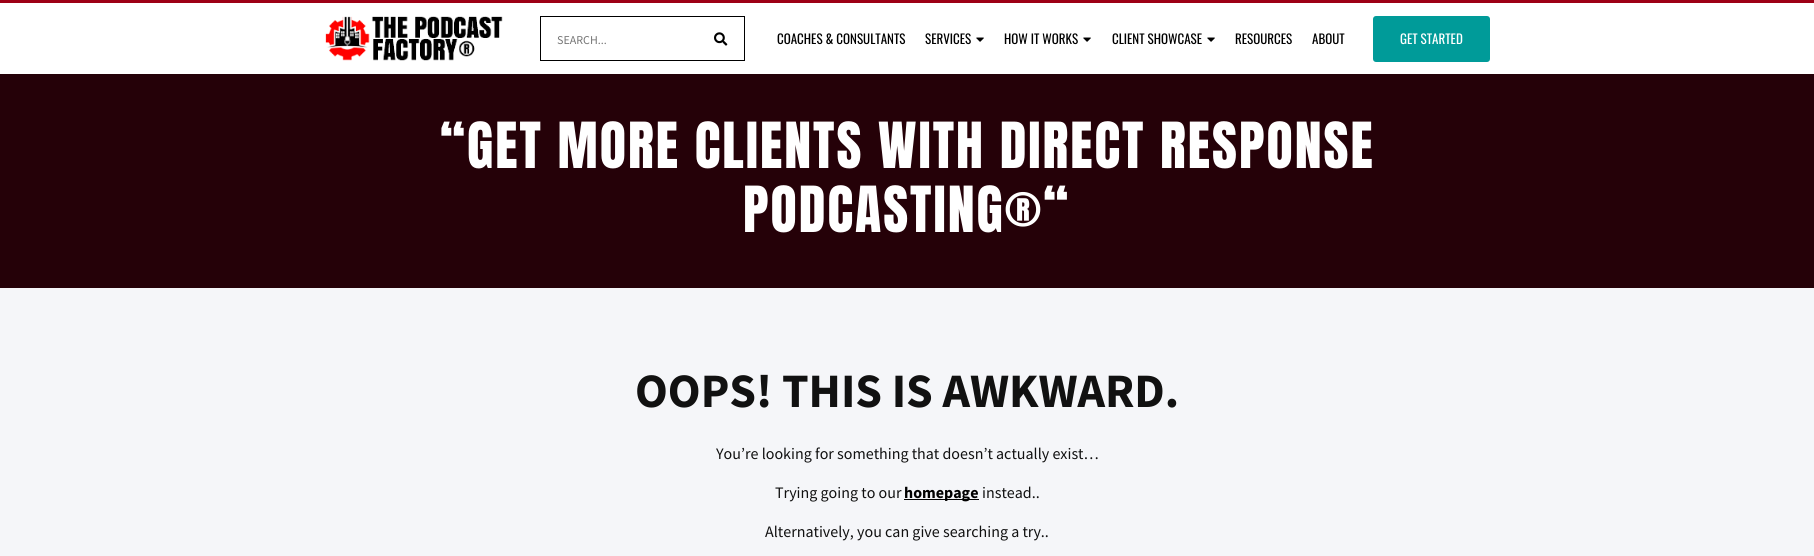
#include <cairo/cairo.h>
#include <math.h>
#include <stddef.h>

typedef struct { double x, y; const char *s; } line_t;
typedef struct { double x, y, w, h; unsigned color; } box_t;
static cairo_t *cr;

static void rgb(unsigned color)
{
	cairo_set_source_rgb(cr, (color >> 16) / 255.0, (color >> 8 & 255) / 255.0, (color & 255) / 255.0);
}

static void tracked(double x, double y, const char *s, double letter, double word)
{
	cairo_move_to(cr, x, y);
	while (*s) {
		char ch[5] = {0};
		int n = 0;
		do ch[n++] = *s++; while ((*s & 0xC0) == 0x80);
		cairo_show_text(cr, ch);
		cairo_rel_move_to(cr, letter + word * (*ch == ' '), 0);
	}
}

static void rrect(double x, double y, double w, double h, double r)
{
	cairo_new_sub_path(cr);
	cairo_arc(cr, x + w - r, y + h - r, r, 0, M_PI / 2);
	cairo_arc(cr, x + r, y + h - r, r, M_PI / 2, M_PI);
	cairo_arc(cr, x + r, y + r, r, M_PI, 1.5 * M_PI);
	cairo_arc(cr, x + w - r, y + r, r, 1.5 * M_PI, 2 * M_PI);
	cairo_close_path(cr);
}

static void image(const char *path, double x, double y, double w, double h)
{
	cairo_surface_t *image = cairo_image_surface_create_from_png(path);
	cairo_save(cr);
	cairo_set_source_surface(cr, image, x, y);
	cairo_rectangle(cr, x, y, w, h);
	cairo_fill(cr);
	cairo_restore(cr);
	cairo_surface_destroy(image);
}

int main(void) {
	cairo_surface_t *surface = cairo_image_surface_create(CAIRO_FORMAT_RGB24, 1814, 556);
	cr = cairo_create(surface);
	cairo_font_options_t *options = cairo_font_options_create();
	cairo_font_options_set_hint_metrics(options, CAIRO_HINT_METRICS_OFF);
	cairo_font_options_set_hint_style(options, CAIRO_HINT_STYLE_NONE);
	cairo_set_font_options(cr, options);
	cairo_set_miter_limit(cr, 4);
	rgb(0xffffff);
	cairo_paint(cr);
	rgb(0x9d0015);
	cairo_rectangle(cr, 0, 0, 1814, 3);
	cairo_fill(cr);
	image("img/1.png", 325, 16, 178, 45);
	cairo_rectangle(cr, 540.5, 16.5, 204, 44);
	rgb(0x000000);
	cairo_set_line_width(cr, 1);
	cairo_stroke(cr);
	image("img/2.png", 714, 32, 14, 14);
	image("img/3.png", 976, 37, 8, 5);
	image("img/3.png", 1083, 37, 8, 5);
	image("img/3.png", 1207, 37, 8, 5);
	rgb(0x009b99);
	rrect(1373, 16, 117, 46, 3);
	cairo_fill(cr);
	{
		static const box_t items[] = {
			{0, 74, 1814, 214, 0x250108},
			{0, 288, 1814, 268, 0xf5f6f9},
			{904, 499, 75, 1, 0x000000},
		};
		for (size_t i = 0; i < sizeof items / sizeof *items; i++) {
			rgb(items[i].color);
			cairo_rectangle(cr, items[i].x, items[i].y, items[i].w, items[i].h);
			cairo_fill(cr);
		}
	}
	cairo_select_font_face(cr, "Source Sans Pro", CAIRO_FONT_SLANT_NORMAL, CAIRO_FONT_WEIGHT_NORMAL);
	cairo_set_font_size(cr, 12);
	rgb(0x757575);
	cairo_move_to(cr, 557, 44);
	cairo_show_text(cr, "SEARCH...");
	cairo_select_font_face(cr, "Oswald", CAIRO_FONT_SLANT_NORMAL, CAIRO_FONT_WEIGHT_NORMAL);
	cairo_set_font_size(cr, 13);
	rgb(0x000000);
	{
		static const line_t items[] = {
			{777, 44, "COACHES & CONSULTANTS"},
			{925, 44, "SERVICES"},
			{1004, 44, "HOW IT WORKS"},
			{1112, 44, "CLIENT SHOWCASE"},
			{1235, 44, "RESOURCES"},
			{1312, 44, "ABOUT"},
		};
		for (size_t i = 0; i < sizeof items / sizeof *items; i++) {
			cairo_move_to(cr, items[i].x, items[i].y);
			cairo_show_text(cr, items[i].s);
		}
	}
	rgb(0xffffff);
	cairo_move_to(cr, 1400, 44);
	cairo_show_text(cr, "GET STARTED");
	cairo_select_font_face(cr, "Anton", CAIRO_FONT_SLANT_NORMAL, CAIRO_FONT_WEIGHT_NORMAL);
	cairo_set_font_size(cr, 54);
	tracked(440, 168, "“GET MORE CLIENTS WITH DIRECT RESPONSE", 2, 0);
	tracked(743, 232, "PODCASTING®“", 2, 0);
	cairo_select_font_face(cr, "Source Sans Pro", CAIRO_FONT_SLANT_NORMAL, CAIRO_FONT_WEIGHT_BOLD);
	cairo_set_font_size(cr, 48);
	rgb(0x111111);
	cairo_move_to(cr, 635, 407);
	cairo_show_text(cr, "OOPS! THIS IS AWKWARD.");
	cairo_select_font_face(cr, "Source Sans Pro", CAIRO_FONT_SLANT_NORMAL, CAIRO_FONT_WEIGHT_NORMAL);
	cairo_set_font_size(cr, 16);
	cairo_move_to(cr, 716, 459);
	cairo_show_text(cr, "You’re looking for something that doesn’t actually exist…");
	cairo_move_to(cr, 775, 498);
	cairo_show_text(cr, "Trying going to our");
	cairo_select_font_face(cr, "Source Sans Pro", CAIRO_FONT_SLANT_NORMAL, CAIRO_FONT_WEIGHT_BOLD);
	rgb(0x000000);
	cairo_move_to(cr, 904, 498);
	cairo_show_text(cr, "homepage");
	cairo_select_font_face(cr, "Source Sans Pro", CAIRO_FONT_SLANT_NORMAL, CAIRO_FONT_WEIGHT_NORMAL);
	rgb(0x111111);
	cairo_move_to(cr, 982, 498);
	cairo_show_text(cr, "instead..");
	cairo_move_to(cr, 765, 537);
	cairo_show_text(cr, "Alternatively, you can give searching a try..");
	cairo_surface_write_to_png(surface, "page.png");
	cairo_font_options_destroy(options);
	cairo_destroy(cr);
	cairo_surface_destroy(surface);
	return 0;
}
